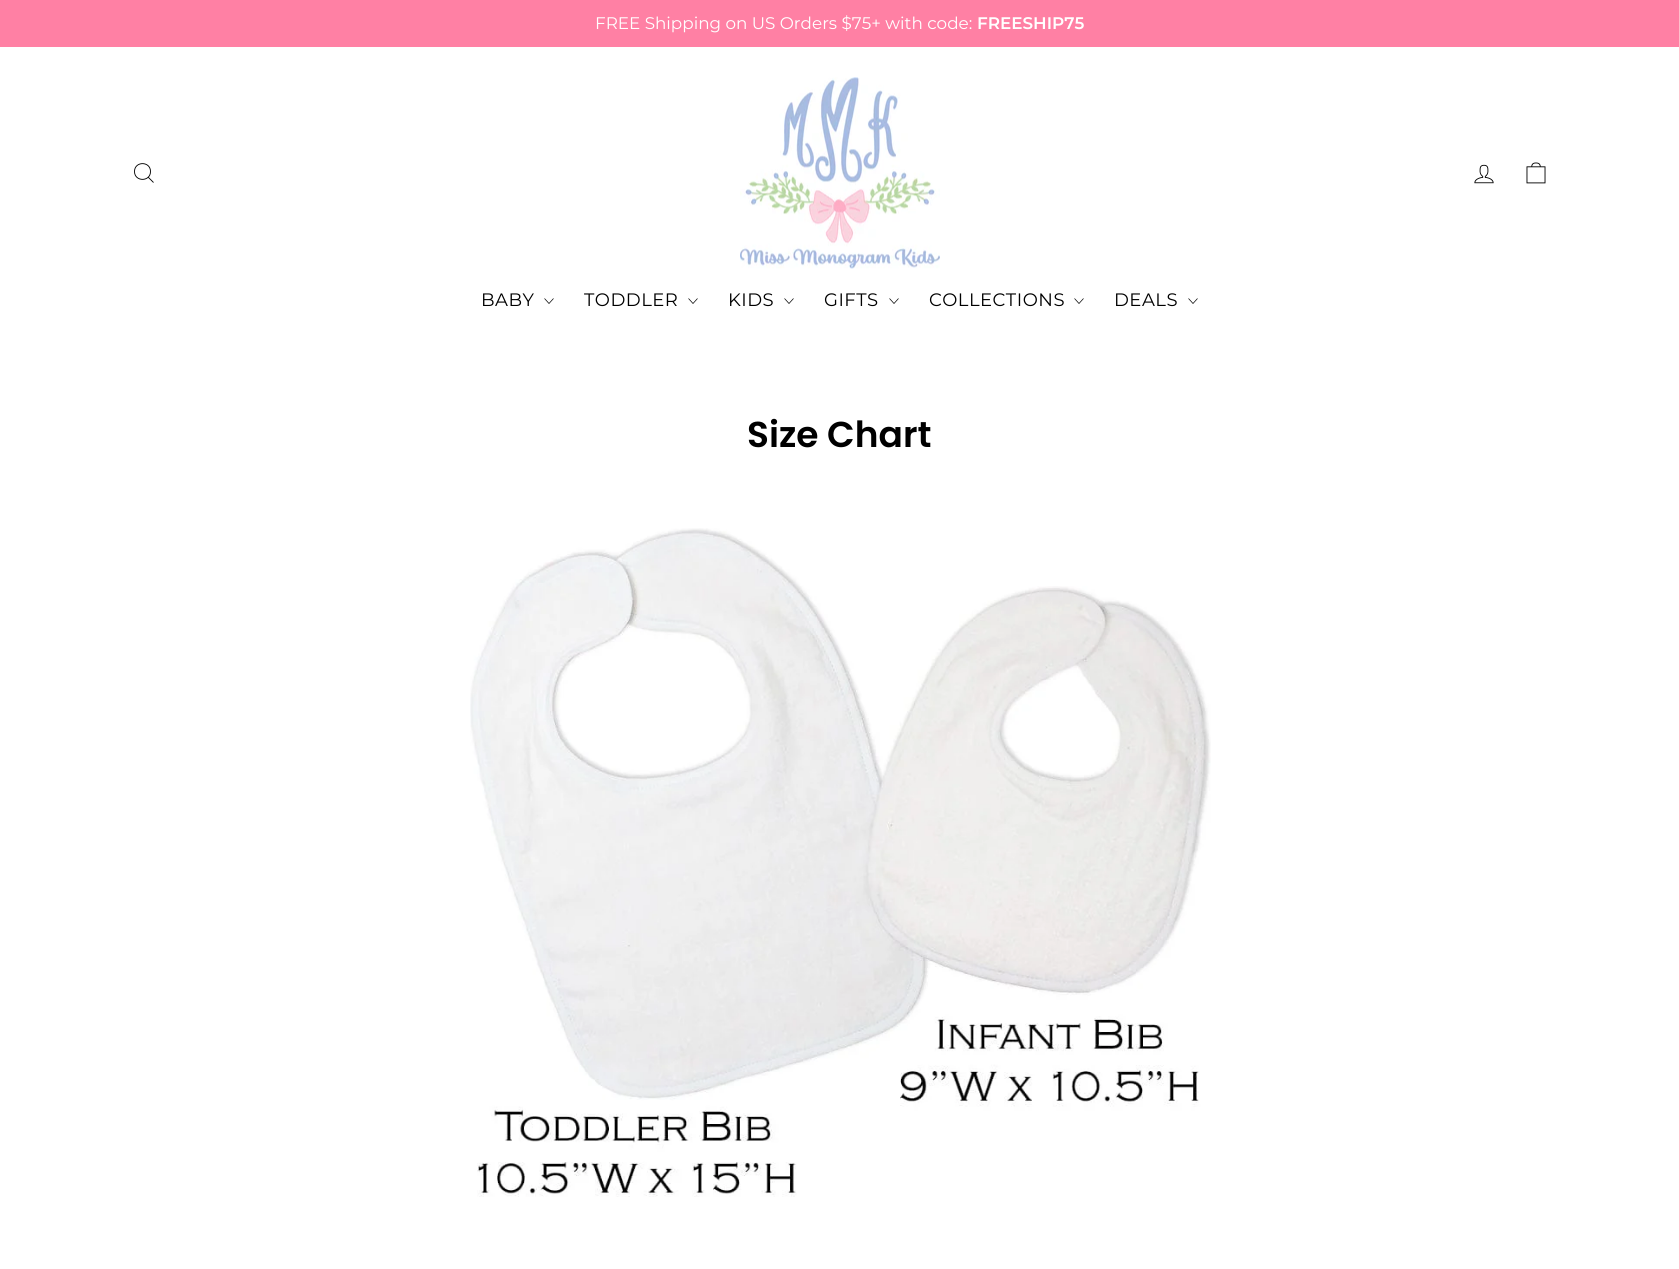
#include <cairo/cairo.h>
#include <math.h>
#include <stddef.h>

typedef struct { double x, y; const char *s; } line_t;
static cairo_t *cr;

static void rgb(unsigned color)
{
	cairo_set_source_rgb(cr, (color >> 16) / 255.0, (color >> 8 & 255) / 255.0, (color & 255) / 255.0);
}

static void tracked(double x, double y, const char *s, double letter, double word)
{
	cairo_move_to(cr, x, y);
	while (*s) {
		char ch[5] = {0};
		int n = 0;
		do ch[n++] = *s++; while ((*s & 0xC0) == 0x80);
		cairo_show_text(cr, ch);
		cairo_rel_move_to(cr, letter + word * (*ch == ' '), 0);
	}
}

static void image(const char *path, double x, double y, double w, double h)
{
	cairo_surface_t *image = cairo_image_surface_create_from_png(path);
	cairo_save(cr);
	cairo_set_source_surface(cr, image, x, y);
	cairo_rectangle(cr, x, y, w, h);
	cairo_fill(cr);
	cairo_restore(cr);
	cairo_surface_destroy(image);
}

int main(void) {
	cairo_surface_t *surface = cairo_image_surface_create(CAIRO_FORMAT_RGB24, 1679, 1269);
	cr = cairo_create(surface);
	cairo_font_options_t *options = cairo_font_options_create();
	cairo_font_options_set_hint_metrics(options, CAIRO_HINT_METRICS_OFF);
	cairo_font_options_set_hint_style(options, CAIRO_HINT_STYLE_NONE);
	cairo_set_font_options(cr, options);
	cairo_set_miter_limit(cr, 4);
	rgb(0xffffff);
	cairo_paint(cr);
	rgb(0xff80a4);
	cairo_rectangle(cr, 0, 0, 1679, 47);
	cairo_fill(cr);
	cairo_new_path(cr);
	cairo_move_to(cr, 150.5, 171.5);
	cairo_curve_to(cr, 150.5, 182, 134.5, 182, 134.5, 171.5);
	cairo_curve_to(cr, 134.5, 161, 150.5, 161, 150.5, 171.5);
	cairo_close_path(cr);
	cairo_move_to(cr, 153.5, 182.5);
	cairo_line_to(cr, 148.5, 177.5);
	rgb(0x000000);
	cairo_set_line_width(cr, 0.9);
	cairo_stroke(cr);
	image("img/1.png", 740, 77, 200, 192);
	image("img/2.png", 1474, 164, 20, 20);
	image("img/3.png", 1526, 162, 20, 22);
	cairo_new_path(cr);
	cairo_move_to(cr, 544.5, 298.5);
	cairo_line_to(cr, 549, 303.5);
	cairo_line_to(cr, 553.5, 298.5);
	cairo_set_line_width(cr, 0.7);
	cairo_stroke(cr);
	cairo_new_path(cr);
	cairo_move_to(cr, 688.5, 298.5);
	cairo_line_to(cr, 693, 303.5);
	cairo_line_to(cr, 697.5, 298.5);
	cairo_stroke(cr);
	cairo_new_path(cr);
	cairo_move_to(cr, 784.5, 298.5);
	cairo_line_to(cr, 789, 303.5);
	cairo_line_to(cr, 793.5, 298.5);
	cairo_stroke(cr);
	cairo_new_path(cr);
	cairo_move_to(cr, 889.5, 298.5);
	cairo_line_to(cr, 894, 303.5);
	cairo_line_to(cr, 898.5, 298.5);
	cairo_stroke(cr);
	cairo_new_path(cr);
	cairo_move_to(cr, 1074.5, 298.5);
	cairo_line_to(cr, 1079, 303.5);
	cairo_line_to(cr, 1083.5, 298.5);
	cairo_stroke(cr);
	cairo_new_path(cr);
	cairo_move_to(cr, 1188.5, 298.5);
	cairo_line_to(cr, 1193, 303.5);
	cairo_line_to(cr, 1197.5, 298.5);
	cairo_stroke(cr);
	image("img/4.png", 470, 528, 741, 669);
	cairo_select_font_face(cr, "Montserrat", CAIRO_FONT_SLANT_NORMAL, CAIRO_FONT_WEIGHT_NORMAL);
	cairo_set_font_size(cr, 16.8);
	rgb(0xffffff);
	cairo_move_to(cr, 595, 29);
	cairo_show_text(cr, "FREE Shipping on US Orders $75+ with code:");
	cairo_select_font_face(cr, "Montserrat SemiBold", CAIRO_FONT_SLANT_NORMAL, CAIRO_FONT_WEIGHT_NORMAL);
	cairo_move_to(cr, 977, 29);
	cairo_show_text(cr, "FREESHIP75");
	cairo_select_font_face(cr, "Montserrat", CAIRO_FONT_SLANT_NORMAL, CAIRO_FONT_WEIGHT_NORMAL);
	cairo_set_font_size(cr, 18);
	rgb(0x000000);
	{
		static const line_t items[] = {
			{481, 306, "BABY"},
			{584, 306, "TODDLER"},
			{728, 306, "KIDS"},
			{824, 306, "GIFTS"},
			{929, 306, "COLLECTIONS"},
			{1114, 306, "DEALS"},
		};
		for (size_t i = 0; i < sizeof items / sizeof *items; i++) {
			tracked(items[i].x, items[i].y, items[i].s, 0.5, 0);
		}
	}
	cairo_select_font_face(cr, "Poppins SemiBold", CAIRO_FONT_SLANT_NORMAL, CAIRO_FONT_WEIGHT_NORMAL);
	cairo_set_font_size(cr, 36);
	cairo_move_to(cr, 747, 447);
	cairo_show_text(cr, "Size Chart");
	cairo_surface_write_to_png(surface, "page.png");
	cairo_font_options_destroy(options);
	cairo_destroy(cr);
	cairo_surface_destroy(surface);
	return 0;
}
